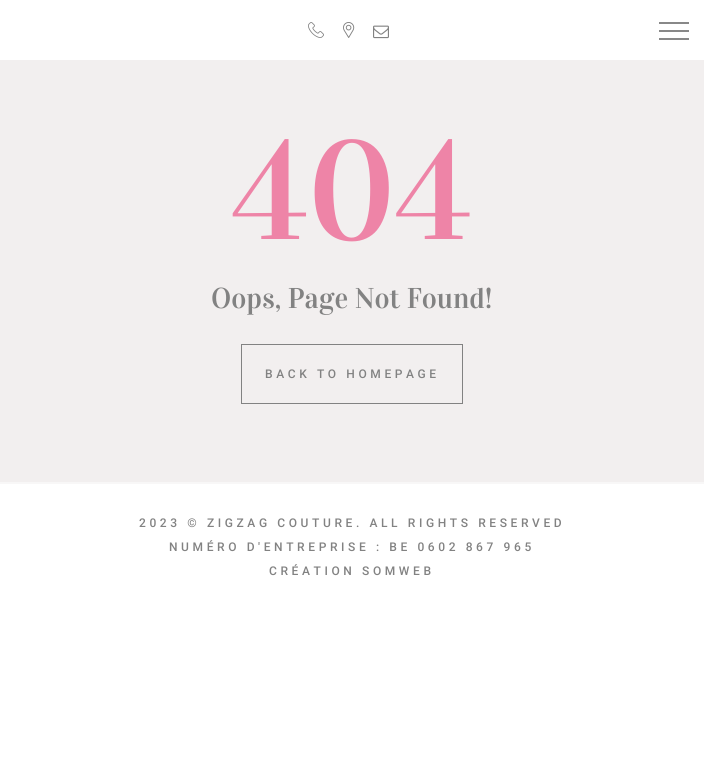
#include <cairo/cairo.h>
#include <math.h>
#include <stddef.h>

typedef struct { double x, y; const char *s; } line_t;
typedef struct { double x, y, w, h; unsigned color; } box_t;
static cairo_t *cr;

static void rgb(unsigned color)
{
	cairo_set_source_rgb(cr, (color >> 16) / 255.0, (color >> 8 & 255) / 255.0, (color & 255) / 255.0);
}

static void tracked(double x, double y, const char *s, double letter, double word)
{
	cairo_move_to(cr, x, y);
	while (*s) {
		char ch[5] = {0};
		int n = 0;
		do ch[n++] = *s++; while ((*s & 0xC0) == 0x80);
		cairo_show_text(cr, ch);
		cairo_rel_move_to(cr, letter + word * (*ch == ' '), 0);
	}
}

static void image(const char *path, double x, double y, double w, double h)
{
	cairo_surface_t *image = cairo_image_surface_create_from_png(path);
	cairo_save(cr);
	cairo_set_source_surface(cr, image, x, y);
	cairo_rectangle(cr, x, y, w, h);
	cairo_fill(cr);
	cairo_restore(cr);
	cairo_surface_destroy(image);
}

int main(void) {
	cairo_surface_t *surface = cairo_image_surface_create(CAIRO_FORMAT_RGB24, 704, 773);
	cr = cairo_create(surface);
	cairo_font_options_t *options = cairo_font_options_create();
	cairo_font_options_set_hint_metrics(options, CAIRO_HINT_METRICS_OFF);
	cairo_font_options_set_hint_style(options, CAIRO_HINT_STYLE_NONE);
	cairo_set_font_options(cr, options);
	cairo_set_miter_limit(cr, 4);
	rgb(0xffffff);
	cairo_paint(cr);
	image("img/1.png", 308, 22, 16, 16);
	image("img/2.png", 343, 22, 12, 16);
	image("img/3.png", 373, 25, 16, 14);
	{
		static const box_t items[] = {
			{659, 22, 30, 2, 0x888888},
			{659, 38, 30, 2, 0x888888},
			{659, 30, 30, 2, 0x888888},
			{0, 60, 704, 422, 0xf2efef},
		};
		for (size_t i = 0; i < sizeof items / sizeof *items; i++) {
			rgb(items[i].color);
			cairo_rectangle(cr, items[i].x, items[i].y, items[i].w, items[i].h);
			cairo_fill(cr);
		}
	}
	cairo_rectangle(cr, 241.5, 344.5, 221, 59);
	rgb(0x828282);
	cairo_set_line_width(cr, 1);
	cairo_stroke(cr);
	rgb(0xf8f7f7);
	cairo_rectangle(cr, 0, 482, 704, 2);
	cairo_fill(cr);
	cairo_select_font_face(cr, "Vidaloka", CAIRO_FONT_SLANT_NORMAL, CAIRO_FONT_WEIGHT_NORMAL);
	cairo_set_font_size(cr, 140);
	rgb(0xee84a7);
	cairo_move_to(cr, 232, 239);
	cairo_show_text(cr, "404");
	cairo_set_font_size(cr, 28.75);
	rgb(0x828282);
	cairo_move_to(cr, 211, 308);
	cairo_show_text(cr, "Oops, Page Not Found!");
	cairo_select_font_face(cr, "Roboto Medium", CAIRO_FONT_SLANT_NORMAL, CAIRO_FONT_WEIGHT_NORMAL);
	cairo_set_font_size(cr, 12);
	{
		static const line_t items[] = {
			{265, 378, "BACK TO HOMEPAGE"},
			{139, 527, "2023 © ZIGZAG COUTURE. ALL RIGHTS RESERVED"},
			{169, 551, "NUMÉRO D'ENTREPRISE : BE 0602 867 965"},
			{269, 575, "CRÉATION SOMWEB"},
		};
		for (size_t i = 0; i < sizeof items / sizeof *items; i++) {
			tracked(items[i].x, items[i].y, items[i].s, 3.6, 0);
		}
	}
	cairo_surface_write_to_png(surface, "page.png");
	cairo_font_options_destroy(options);
	cairo_destroy(cr);
	cairo_surface_destroy(surface);
	return 0;
}
